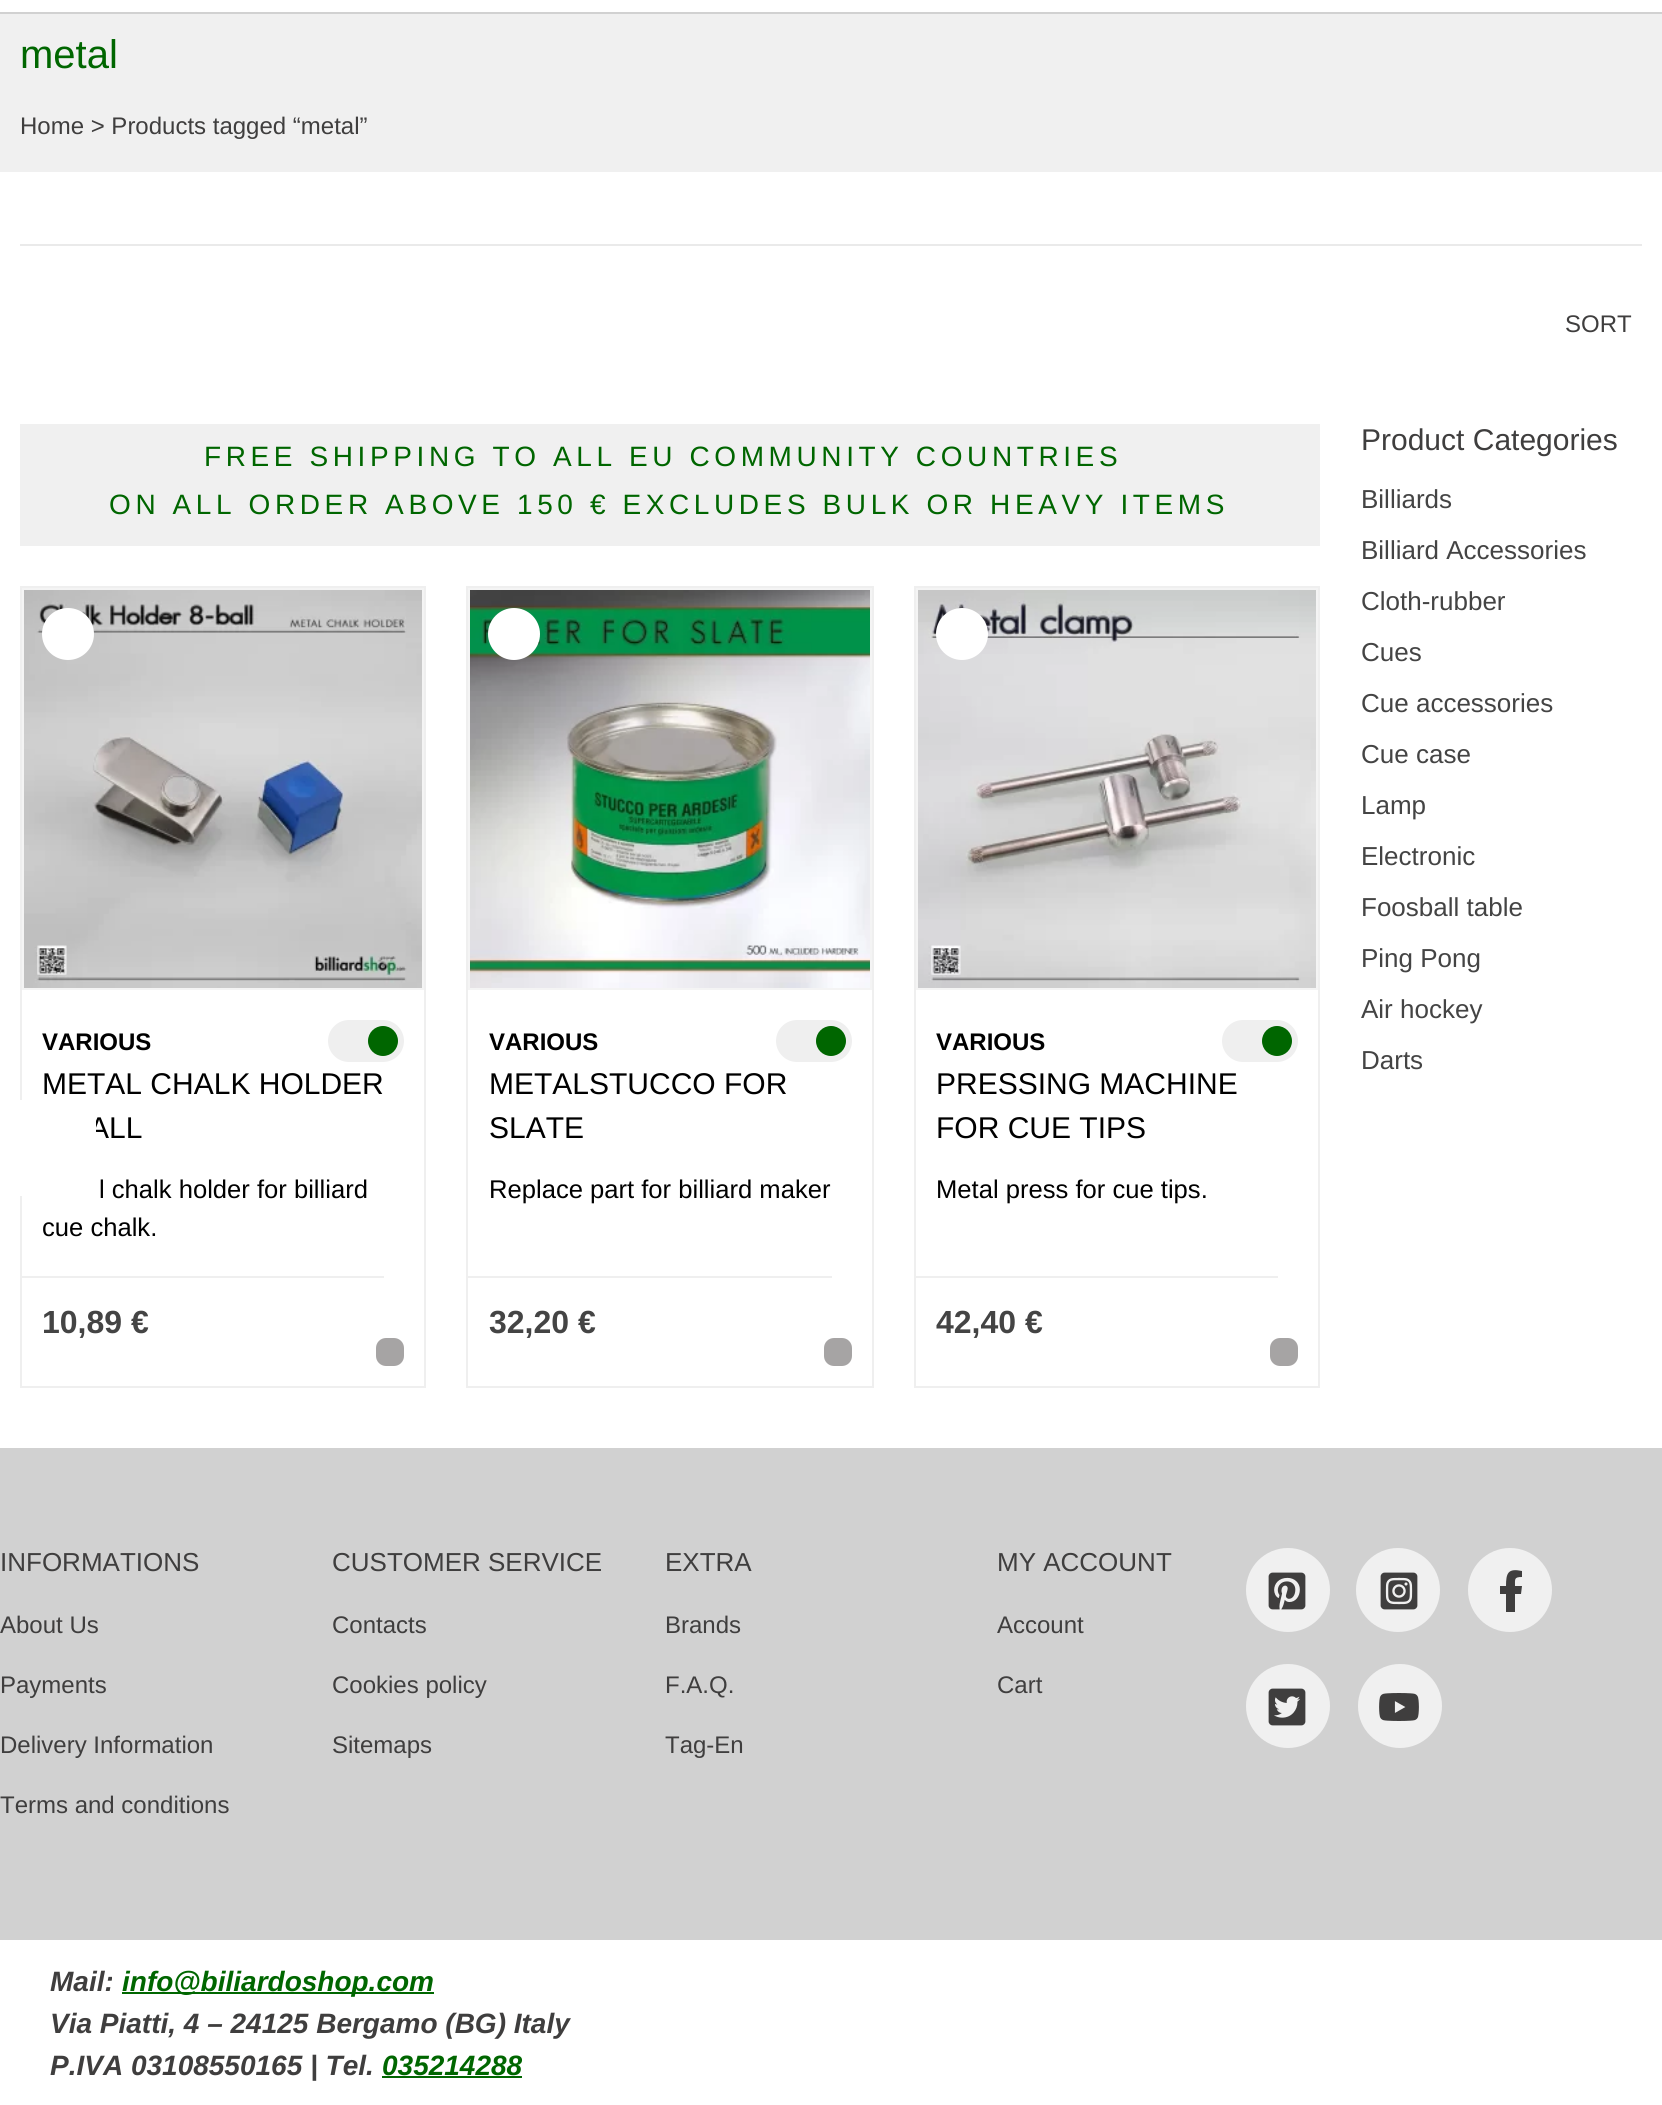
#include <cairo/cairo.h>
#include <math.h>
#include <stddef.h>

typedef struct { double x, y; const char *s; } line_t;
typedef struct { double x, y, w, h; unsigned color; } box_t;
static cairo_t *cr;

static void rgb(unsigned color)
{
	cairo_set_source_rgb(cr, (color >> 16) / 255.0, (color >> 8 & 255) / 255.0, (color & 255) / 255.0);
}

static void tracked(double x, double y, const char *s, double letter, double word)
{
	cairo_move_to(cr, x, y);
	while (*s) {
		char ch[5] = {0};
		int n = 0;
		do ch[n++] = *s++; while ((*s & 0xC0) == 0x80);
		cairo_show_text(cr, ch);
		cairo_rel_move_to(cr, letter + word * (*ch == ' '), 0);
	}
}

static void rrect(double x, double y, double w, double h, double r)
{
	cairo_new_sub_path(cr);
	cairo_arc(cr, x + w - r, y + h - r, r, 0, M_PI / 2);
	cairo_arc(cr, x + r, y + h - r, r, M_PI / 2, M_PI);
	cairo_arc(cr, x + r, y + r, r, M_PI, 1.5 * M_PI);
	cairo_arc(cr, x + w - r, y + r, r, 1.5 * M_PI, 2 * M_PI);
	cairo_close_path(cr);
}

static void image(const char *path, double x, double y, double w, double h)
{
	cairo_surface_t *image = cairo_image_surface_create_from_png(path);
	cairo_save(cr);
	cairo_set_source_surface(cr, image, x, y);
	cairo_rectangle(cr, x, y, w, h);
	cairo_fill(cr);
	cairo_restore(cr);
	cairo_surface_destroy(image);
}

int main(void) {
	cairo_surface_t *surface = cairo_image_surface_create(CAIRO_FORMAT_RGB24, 1662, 2105);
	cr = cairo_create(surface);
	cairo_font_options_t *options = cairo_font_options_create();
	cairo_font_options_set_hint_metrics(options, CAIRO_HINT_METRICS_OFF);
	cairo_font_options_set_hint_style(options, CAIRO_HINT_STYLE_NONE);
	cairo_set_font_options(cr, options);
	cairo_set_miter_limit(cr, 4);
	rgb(0xffffff);
	cairo_paint(cr);
	{
		static const box_t items[] = {
			{0, 12, 1662, 2, 0xd1d1d1},
			{0, 14, 1662, 158, 0xf0f0f0},
			{20, 244, 1622, 2, 0xeaeaea},
			{20, 424, 1298, 120, 0xf0f0f0},
			{1318, 424, 2, 122, 0xf0f0f0},
			{20, 544, 1300, 2, 0xf0f0f0},
		};
		for (size_t i = 0; i < sizeof items / sizeof *items; i++) {
			rgb(items[i].color);
			cairo_rectangle(cr, items[i].x, items[i].y, items[i].w, items[i].h);
			cairo_fill(cr);
		}
	}
	cairo_rectangle(cr, 21, 587, 404, 800);
	rgb(0xefefef);
	cairo_stroke(cr);
	cairo_rectangle(cr, 23, 589, 400, 400);
	rgb(0xf4f4f4);
	cairo_stroke(cr);
	image("img/1.png", 24, 590, 398, 398);
	rgb(0xffffff);
	cairo_arc(cr, 68, 634, 26, 0, 2 * M_PI);
	cairo_fill(cr);
	rgb(0xefefef);
	rrect(328, 1020, 76, 42, 21);
	cairo_fill(cr);
	rgb(0x006600);
	cairo_arc(cr, 383, 1041, 15, 0, 2 * M_PI);
	cairo_fill(cr);
	rgb(0xa6a4a4);
	rrect(378, 1340, 24, 24, 8);
	cairo_fill_preserve(cr);
	cairo_set_line_width(cr, 4);
	cairo_stroke(cr);
	rgb(0xefefef);
	cairo_rectangle(cr, 22, 1276, 362, 2);
	cairo_fill(cr);
	cairo_rectangle(cr, 467, 587, 406, 800);
	cairo_set_line_width(cr, 2);
	cairo_stroke(cr);
	cairo_rectangle(cr, 469, 589, 402, 400);
	rgb(0xf4f4f4);
	cairo_stroke(cr);
	image("img/2.png", 470, 590, 400, 398);
	rgb(0xffffff);
	cairo_arc(cr, 514, 634, 26, 0, 2 * M_PI);
	cairo_fill(cr);
	rgb(0xefefef);
	rrect(776, 1020, 76, 42, 21);
	cairo_fill(cr);
	rgb(0x006600);
	cairo_arc(cr, 831, 1041, 15, 0, 2 * M_PI);
	cairo_fill(cr);
	rgb(0xa6a4a4);
	rrect(826, 1340, 24, 24, 8);
	cairo_fill_preserve(cr);
	cairo_set_line_width(cr, 4);
	cairo_stroke(cr);
	rgb(0xefefef);
	cairo_rectangle(cr, 468, 1276, 364, 2);
	cairo_fill(cr);
	cairo_rectangle(cr, 915, 587, 404, 800);
	cairo_set_line_width(cr, 2);
	cairo_stroke(cr);
	cairo_rectangle(cr, 917, 589, 400, 400);
	rgb(0xf4f4f4);
	cairo_stroke(cr);
	image("img/3.png", 918, 590, 398, 398);
	rgb(0xffffff);
	cairo_arc(cr, 962, 634, 26, 0, 2 * M_PI);
	cairo_fill(cr);
	rgb(0xefefef);
	rrect(1222, 1020, 76, 42, 21);
	cairo_fill(cr);
	rgb(0x006600);
	cairo_arc(cr, 1277, 1041, 15, 0, 2 * M_PI);
	cairo_fill(cr);
	rgb(0xa6a4a4);
	rrect(1272, 1340, 24, 24, 8);
	cairo_fill_preserve(cr);
	cairo_set_line_width(cr, 4);
	cairo_stroke(cr);
	rgb(0xefefef);
	cairo_rectangle(cr, 916, 1276, 362, 2);
	cairo_fill(cr);
	rgb(0xd1d1d1);
	cairo_rectangle(cr, 0, 1448, 1662, 492);
	cairo_fill(cr);
	rgb(0xf0f0f0);
	cairo_arc(cr, 1288, 1590, 42, 0, 2 * M_PI);
	cairo_fill(cr);
	image("img/4.png", 1268, 1572, 38, 38);
	cairo_arc(cr, 1398, 1590, 42, 0, 2 * M_PI);
	cairo_fill(cr);
	image("img/5.png", 1380, 1572, 38, 38);
	cairo_arc(cr, 1510, 1590, 42, 0, 2 * M_PI);
	cairo_fill(cr);
	rgb(0x3f3e3e);
	cairo_new_path(cr);
	cairo_move_to(cr, 1521, 1594);
	cairo_line_to(cr, 1522, 1586);
	cairo_line_to(cr, 1515, 1586);
	cairo_curve_to(cr, 1515, 1579, 1514, 1577, 1522, 1577);
	cairo_line_to(cr, 1522, 1571);
	cairo_curve_to(cr, 1508, 1568, 1506, 1573, 1506, 1586);
	cairo_line_to(cr, 1500, 1586);
	cairo_line_to(cr, 1500, 1594);
	cairo_line_to(cr, 1506, 1594);
	cairo_line_to(cr, 1506, 1612);
	cairo_line_to(cr, 1515, 1612);
	cairo_line_to(cr, 1515, 1594);
	cairo_close_path(cr);
	cairo_fill(cr);
	rgb(0xf0f0f0);
	cairo_arc(cr, 1288, 1706, 42, 0, 2 * M_PI);
	cairo_fill(cr);
	image("img/6.png", 1268, 1688, 38, 38);
	cairo_arc(cr, 1400, 1706, 42, 0, 2 * M_PI);
	cairo_fill(cr);
	image("img/7.png", 1379, 1693, 40, 28);
	rgb(0x006600);
	cairo_rectangle(cr, 122, 1992, 312, 2);
	cairo_fill(cr);
	cairo_rectangle(cr, 382, 2076, 140, 2);
	cairo_fill(cr);
	cairo_select_font_face(cr, "Liberation Sans", CAIRO_FONT_SLANT_NORMAL, CAIRO_FONT_WEIGHT_NORMAL);
	cairo_set_font_size(cr, 40);
	cairo_move_to(cr, 20, 68);
	cairo_show_text(cr, "metal");
	cairo_set_font_size(cr, 24);
	rgb(0x3f3e3e);
	cairo_move_to(cr, 20, 134);
	cairo_show_text(cr, "Home > Products tagged “metal”");
	cairo_move_to(cr, 1565, 332);
	cairo_show_text(cr, "SORT");
	cairo_set_font_size(cr, 28);
	rgb(0x006600);
	tracked(204, 466, "FREE SHIPPING TO ALL EU COMMUNITY COUNTRIES", 4.6, 0);
	tracked(109, 514, "ON ALL ORDER ABOVE 150 € EXCLUDES BULK OR HEAVY ITEMS", 4.6, 0);
	cairo_select_font_face(cr, "Liberation Sans", CAIRO_FONT_SLANT_NORMAL, CAIRO_FONT_WEIGHT_BOLD);
	cairo_set_font_size(cr, 24);
	rgb(0x000000);
	cairo_move_to(cr, 42, 1050);
	cairo_show_text(cr, "VARIOUS");
	cairo_select_font_face(cr, "Liberation Sans", CAIRO_FONT_SLANT_NORMAL, CAIRO_FONT_WEIGHT_NORMAL);
	cairo_set_font_size(cr, 30);
	cairo_move_to(cr, 42, 1094);
	cairo_show_text(cr, "METAL CHALK HOLDER");
	cairo_move_to(cr, 89, 1138);
	cairo_show_text(cr, "ALL");
	cairo_set_font_size(cr, 25.6);
	cairo_move_to(cr, 99, 1198);
	cairo_show_text(cr, "l chalk holder for billiard");
	cairo_move_to(cr, 42, 1236);
	cairo_show_text(cr, "cue chalk.");
	cairo_select_font_face(cr, "Liberation Sans", CAIRO_FONT_SLANT_NORMAL, CAIRO_FONT_WEIGHT_BOLD);
	cairo_set_font_size(cr, 32);
	rgb(0x444444);
	cairo_move_to(cr, 42, 1333);
	cairo_show_text(cr, "10,89 €");
	cairo_set_font_size(cr, 24);
	rgb(0x000000);
	cairo_move_to(cr, 489, 1050);
	cairo_show_text(cr, "VARIOUS");
	cairo_select_font_face(cr, "Liberation Sans", CAIRO_FONT_SLANT_NORMAL, CAIRO_FONT_WEIGHT_NORMAL);
	cairo_set_font_size(cr, 30);
	cairo_move_to(cr, 489, 1094);
	cairo_show_text(cr, "METALSTUCCO FOR");
	cairo_move_to(cr, 489, 1138);
	cairo_show_text(cr, "SLATE");
	cairo_set_font_size(cr, 25.6);
	cairo_move_to(cr, 489, 1198);
	cairo_show_text(cr, "Replace part for billiard maker");
	cairo_select_font_face(cr, "Liberation Sans", CAIRO_FONT_SLANT_NORMAL, CAIRO_FONT_WEIGHT_BOLD);
	cairo_set_font_size(cr, 32);
	rgb(0x444444);
	cairo_move_to(cr, 489, 1333);
	cairo_show_text(cr, "32,20 €");
	cairo_set_font_size(cr, 24);
	rgb(0x000000);
	cairo_move_to(cr, 936, 1050);
	cairo_show_text(cr, "VARIOUS");
	cairo_select_font_face(cr, "Liberation Sans", CAIRO_FONT_SLANT_NORMAL, CAIRO_FONT_WEIGHT_NORMAL);
	cairo_set_font_size(cr, 30);
	cairo_move_to(cr, 936, 1094);
	cairo_show_text(cr, "PRESSING MACHINE");
	cairo_move_to(cr, 936, 1138);
	cairo_show_text(cr, "FOR CUE TIPS");
	cairo_set_font_size(cr, 25.6);
	cairo_move_to(cr, 936, 1198);
	cairo_show_text(cr, "Metal press for cue tips.");
	cairo_select_font_face(cr, "Liberation Sans", CAIRO_FONT_SLANT_NORMAL, CAIRO_FONT_WEIGHT_BOLD);
	cairo_set_font_size(cr, 32);
	rgb(0x444444);
	cairo_move_to(cr, 936, 1333);
	cairo_show_text(cr, "42,40 €");
	cairo_select_font_face(cr, "Liberation Sans", CAIRO_FONT_SLANT_NORMAL, CAIRO_FONT_WEIGHT_NORMAL);
	cairo_set_font_size(cr, 30);
	rgb(0x3f3e3e);
	cairo_move_to(cr, 1361, 450);
	cairo_show_text(cr, "Product Categories");
	cairo_set_font_size(cr, 26);
	rgb(0x444444);
	{
		static const line_t items[] = {
			{1361, 508, "Billiards"},
			{1361, 559, "Billiard Accessories"},
			{1361, 610, "Cloth-rubber"},
			{1361, 661, "Cues"},
			{1361, 712, "Cue accessories"},
			{1361, 763, "Cue case"},
			{1361, 814, "Lamp"},
			{1361, 865, "Electronic"},
			{1361, 916, "Foosball table"},
			{1361, 967, "Ping Pong"},
			{1361, 1018, "Air hockey"},
			{1361, 1069, "Darts"},
		};
		for (size_t i = 0; i < sizeof items / sizeof *items; i++) {
			cairo_move_to(cr, items[i].x, items[i].y);
			cairo_show_text(cr, items[i].s);
		}
	}
	rgb(0xffffff);
	rrect(0, 1100, 96, 96, 10);
	cairo_fill(cr);
	rgb(0x3f3e3e);
	cairo_move_to(cr, 0, 1571);
	cairo_show_text(cr, "INFORMATIONS");
	cairo_set_font_size(cr, 24);
	{
		static const line_t items[] = {
			{0, 1633, "About Us"},
			{0, 1693, "Payments"},
			{0, 1753, "Delivery Information"},
			{0, 1813, "Terms and conditions"},
		};
		for (size_t i = 0; i < sizeof items / sizeof *items; i++) {
			cairo_move_to(cr, items[i].x, items[i].y);
			cairo_show_text(cr, items[i].s);
		}
	}
	cairo_set_font_size(cr, 26);
	cairo_move_to(cr, 332, 1571);
	cairo_show_text(cr, "CUSTOMER SERVICE");
	cairo_set_font_size(cr, 24);
	{
		static const line_t items[] = {
			{332, 1633, "Contacts"},
			{332, 1693, "Cookies policy"},
			{332, 1753, "Sitemaps"},
		};
		for (size_t i = 0; i < sizeof items / sizeof *items; i++) {
			cairo_move_to(cr, items[i].x, items[i].y);
			cairo_show_text(cr, items[i].s);
		}
	}
	cairo_set_font_size(cr, 26);
	cairo_move_to(cr, 665, 1571);
	cairo_show_text(cr, "EXTRA");
	cairo_set_font_size(cr, 24);
	{
		static const line_t items[] = {
			{665, 1633, "Brands"},
			{665, 1693, "F.A.Q."},
			{665, 1753, "Tag-En"},
		};
		for (size_t i = 0; i < sizeof items / sizeof *items; i++) {
			cairo_move_to(cr, items[i].x, items[i].y);
			cairo_show_text(cr, items[i].s);
		}
	}
	cairo_set_font_size(cr, 26);
	cairo_move_to(cr, 997, 1571);
	cairo_show_text(cr, "MY ACCOUNT");
	cairo_set_font_size(cr, 24);
	cairo_move_to(cr, 997, 1633);
	cairo_show_text(cr, "Account");
	cairo_move_to(cr, 997, 1693);
	cairo_show_text(cr, "Cart");
	cairo_select_font_face(cr, "Liberation Sans", CAIRO_FONT_SLANT_ITALIC, CAIRO_FONT_WEIGHT_BOLD);
	cairo_set_font_size(cr, 28);
	cairo_move_to(cr, 50, 1991);
	cairo_show_text(cr, "Mail:");
	rgb(0x006600);
	cairo_move_to(cr, 122, 1991);
	cairo_show_text(cr, "info@biliardoshop.com");
	rgb(0x3f3e3e);
	cairo_move_to(cr, 50, 2033);
	cairo_show_text(cr, "Via Piatti, 4 – 24125 Bergamo (BG) Italy");
	cairo_move_to(cr, 50, 2075);
	cairo_show_text(cr, "P.IVA 03108550165 | Tel.");
	rgb(0x006600);
	cairo_move_to(cr, 382, 2075);
	cairo_show_text(cr, "035214288");
	cairo_surface_write_to_png(surface, "page.png");
	cairo_font_options_destroy(options);
	cairo_destroy(cr);
	cairo_surface_destroy(surface);
	return 0;
}
